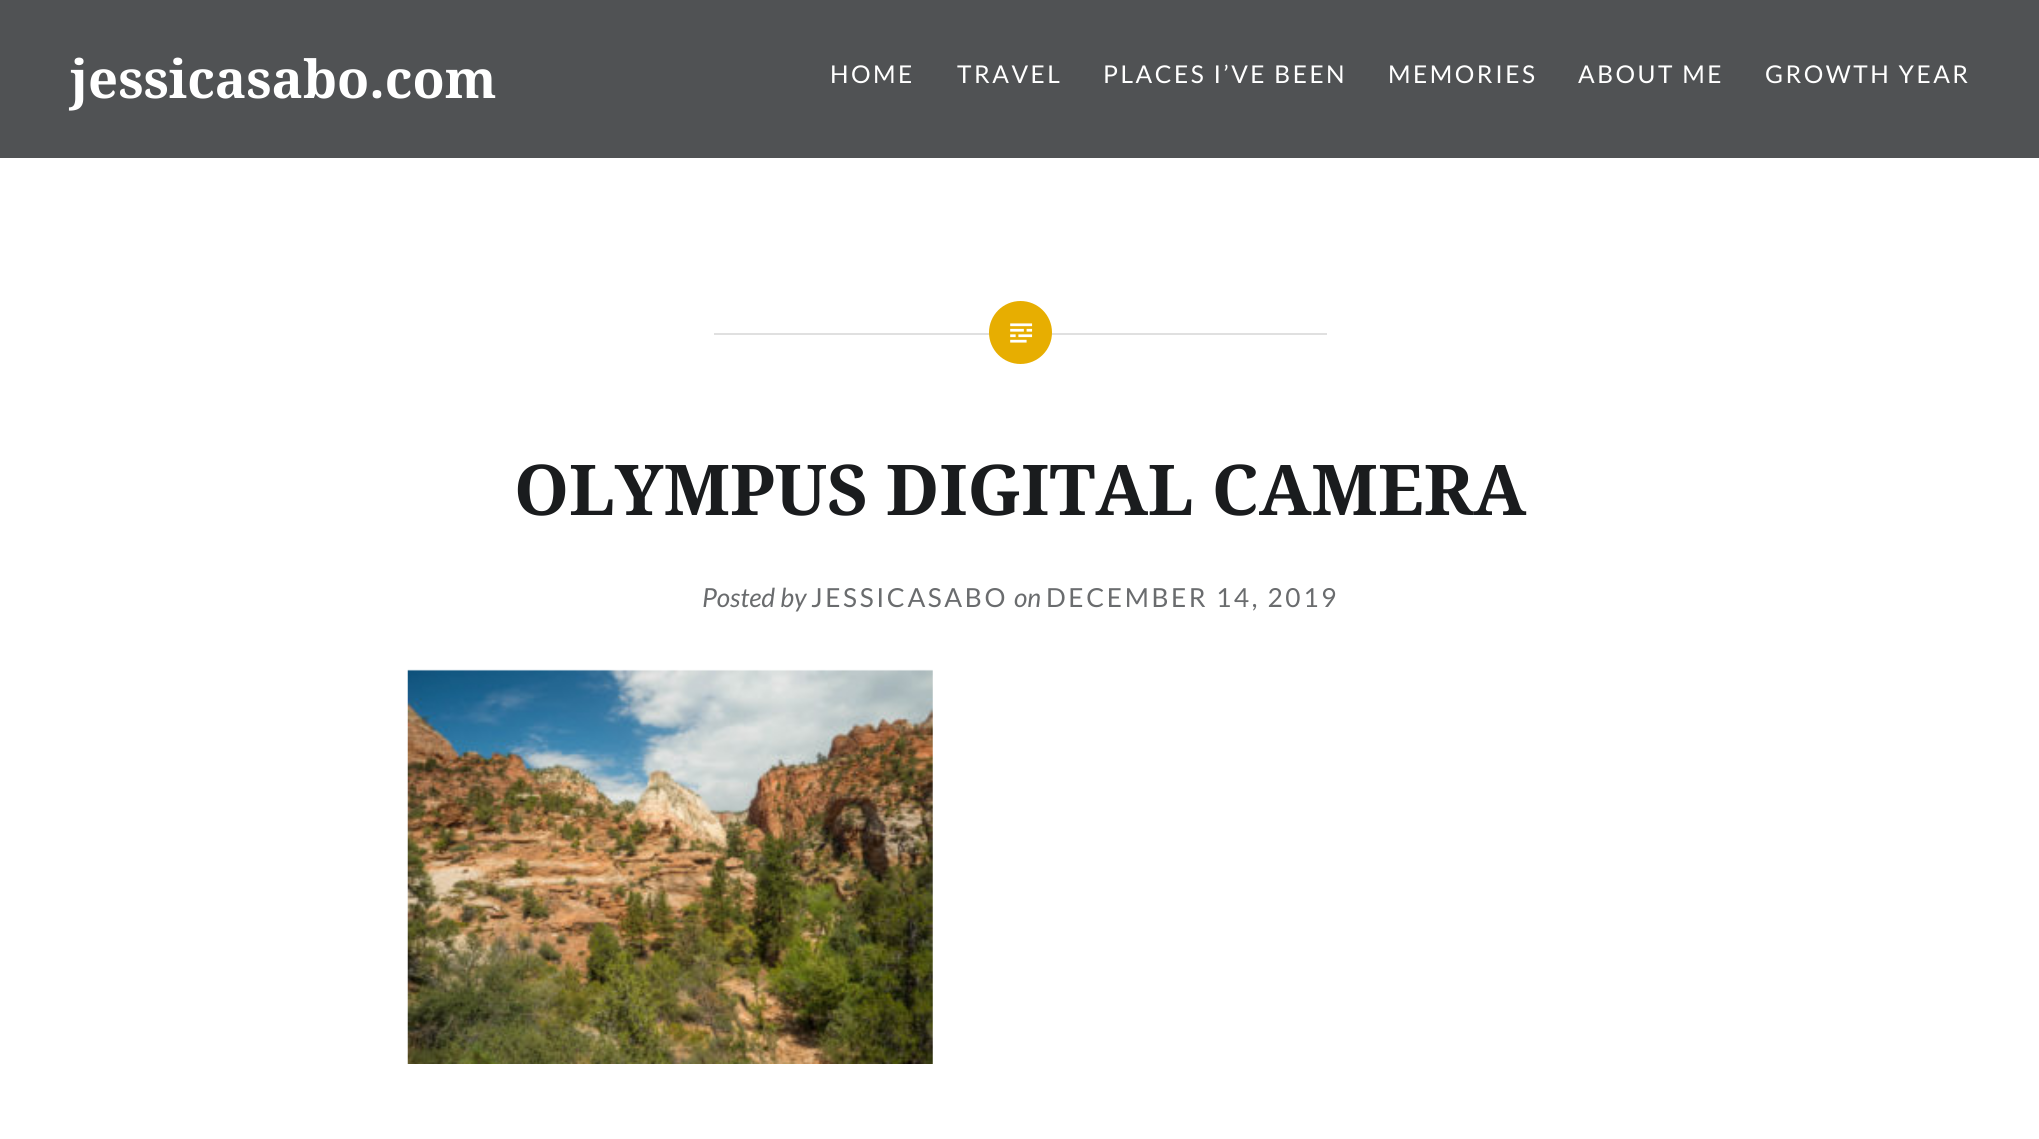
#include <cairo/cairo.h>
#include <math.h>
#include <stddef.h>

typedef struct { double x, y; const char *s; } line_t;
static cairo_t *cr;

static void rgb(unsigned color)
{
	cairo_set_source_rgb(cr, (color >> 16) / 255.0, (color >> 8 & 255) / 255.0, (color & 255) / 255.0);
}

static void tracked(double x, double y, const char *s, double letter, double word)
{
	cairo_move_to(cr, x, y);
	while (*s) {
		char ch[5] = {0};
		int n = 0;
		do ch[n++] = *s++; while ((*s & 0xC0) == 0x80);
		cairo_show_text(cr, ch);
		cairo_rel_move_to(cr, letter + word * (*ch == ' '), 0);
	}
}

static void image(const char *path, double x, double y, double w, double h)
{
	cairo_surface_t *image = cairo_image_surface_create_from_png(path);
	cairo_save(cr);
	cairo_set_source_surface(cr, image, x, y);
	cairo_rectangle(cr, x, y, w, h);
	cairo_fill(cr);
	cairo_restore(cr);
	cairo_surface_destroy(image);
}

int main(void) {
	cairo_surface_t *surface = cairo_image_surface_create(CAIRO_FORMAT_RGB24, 2039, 1139);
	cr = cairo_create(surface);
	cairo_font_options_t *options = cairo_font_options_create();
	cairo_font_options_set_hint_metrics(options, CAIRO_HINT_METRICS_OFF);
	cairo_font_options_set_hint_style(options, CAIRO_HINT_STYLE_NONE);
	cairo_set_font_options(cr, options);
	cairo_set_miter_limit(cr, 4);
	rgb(0xffffff);
	cairo_paint(cr);
	rgb(0x505254);
	cairo_rectangle(cr, 0, 0, 2039, 158);
	cairo_fill(cr);
	rgb(0xe0e0e0);
	cairo_rectangle(cr, 714, 333, 613, 2);
	cairo_fill(cr);
	rgb(0xe7ae01);
	cairo_arc(cr, 1020.5, 332.5, 31.5, 0, 2 * M_PI);
	cairo_fill(cr);
	image("img/1.png", 1010, 323, 23, 20);
	image("img/2.png", 407, 669, 526, 395);
	cairo_select_font_face(cr, "Noto Serif", CAIRO_FONT_SLANT_NORMAL, CAIRO_FONT_WEIGHT_BOLD);
	cairo_set_font_size(cr, 52.5);
	rgb(0xffffff);
	cairo_move_to(cr, 70, 98);
	cairo_show_text(cr, "jessicasabo.com");
	cairo_select_font_face(cr, "Lato", CAIRO_FONT_SLANT_NORMAL, CAIRO_FONT_WEIGHT_NORMAL);
	cairo_set_font_size(cr, 24.5);
	{
		static const line_t items[] = {
			{830, 83, "HOME"},
			{957, 83, "TRAVEL"},
			{1103, 83, "PLACES I’VE BEEN"},
			{1388, 83, "MEMORIES"},
			{1578, 83, "ABOUT ME"},
			{1765, 83, "GROWTH YEAR"},
		};
		for (size_t i = 0; i < sizeof items / sizeof *items; i++) {
			tracked(items[i].x, items[i].y, items[i].s, 2.5, 0);
		}
	}
	cairo_select_font_face(cr, "Noto Serif", CAIRO_FONT_SLANT_NORMAL, CAIRO_FONT_WEIGHT_BOLD);
	cairo_set_font_size(cr, 70);
	rgb(0x1a1c1e);
	cairo_move_to(cr, 514, 515);
	cairo_show_text(cr, "OLYMPUS DIGITAL CAMERA");
	cairo_select_font_face(cr, "Lato", CAIRO_FONT_SLANT_ITALIC, CAIRO_FONT_WEIGHT_NORMAL);
	cairo_set_font_size(cr, 26.25);
	rgb(0x6a6c6e);
	cairo_move_to(cr, 702, 607);
	cairo_show_text(cr, "Posted by");
	cairo_select_font_face(cr, "Lato", CAIRO_FONT_SLANT_NORMAL, CAIRO_FONT_WEIGHT_NORMAL);
	tracked(811, 607, "JESSICASABO", 2.6, 0);
	cairo_select_font_face(cr, "Lato", CAIRO_FONT_SLANT_ITALIC, CAIRO_FONT_WEIGHT_NORMAL);
	cairo_move_to(cr, 1014, 607);
	cairo_show_text(cr, "on");
	cairo_select_font_face(cr, "Lato", CAIRO_FONT_SLANT_NORMAL, CAIRO_FONT_WEIGHT_NORMAL);
	tracked(1046, 607, "DECEMBER 14, 2019", 2.6, 0);
	cairo_surface_write_to_png(surface, "page.png");
	cairo_font_options_destroy(options);
	cairo_destroy(cr);
	cairo_surface_destroy(surface);
	return 0;
}
